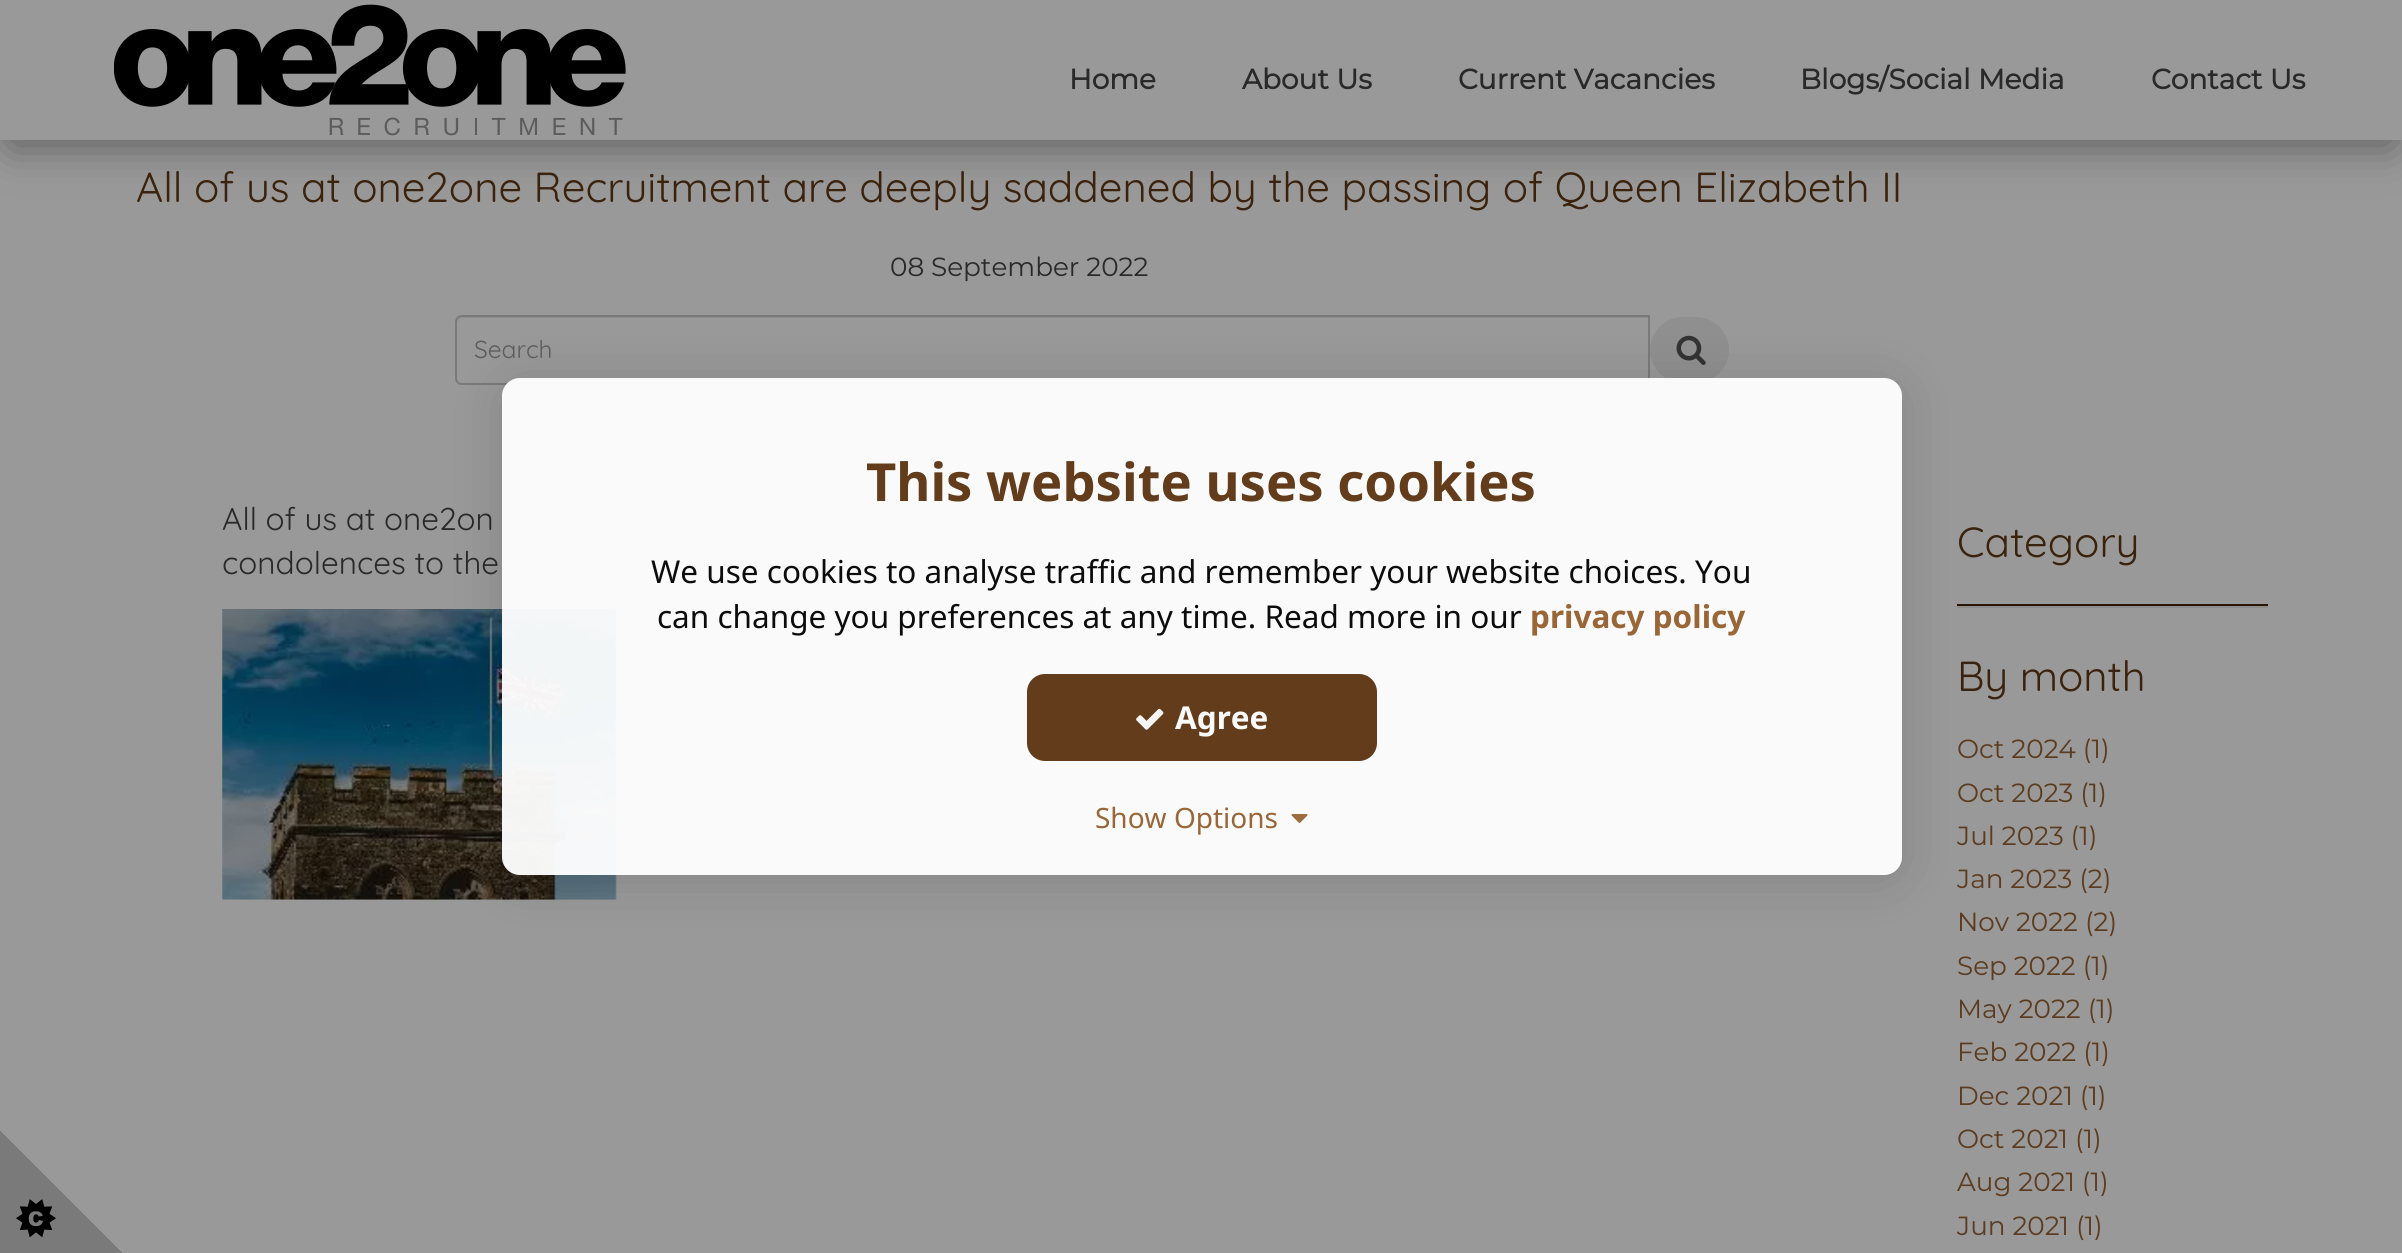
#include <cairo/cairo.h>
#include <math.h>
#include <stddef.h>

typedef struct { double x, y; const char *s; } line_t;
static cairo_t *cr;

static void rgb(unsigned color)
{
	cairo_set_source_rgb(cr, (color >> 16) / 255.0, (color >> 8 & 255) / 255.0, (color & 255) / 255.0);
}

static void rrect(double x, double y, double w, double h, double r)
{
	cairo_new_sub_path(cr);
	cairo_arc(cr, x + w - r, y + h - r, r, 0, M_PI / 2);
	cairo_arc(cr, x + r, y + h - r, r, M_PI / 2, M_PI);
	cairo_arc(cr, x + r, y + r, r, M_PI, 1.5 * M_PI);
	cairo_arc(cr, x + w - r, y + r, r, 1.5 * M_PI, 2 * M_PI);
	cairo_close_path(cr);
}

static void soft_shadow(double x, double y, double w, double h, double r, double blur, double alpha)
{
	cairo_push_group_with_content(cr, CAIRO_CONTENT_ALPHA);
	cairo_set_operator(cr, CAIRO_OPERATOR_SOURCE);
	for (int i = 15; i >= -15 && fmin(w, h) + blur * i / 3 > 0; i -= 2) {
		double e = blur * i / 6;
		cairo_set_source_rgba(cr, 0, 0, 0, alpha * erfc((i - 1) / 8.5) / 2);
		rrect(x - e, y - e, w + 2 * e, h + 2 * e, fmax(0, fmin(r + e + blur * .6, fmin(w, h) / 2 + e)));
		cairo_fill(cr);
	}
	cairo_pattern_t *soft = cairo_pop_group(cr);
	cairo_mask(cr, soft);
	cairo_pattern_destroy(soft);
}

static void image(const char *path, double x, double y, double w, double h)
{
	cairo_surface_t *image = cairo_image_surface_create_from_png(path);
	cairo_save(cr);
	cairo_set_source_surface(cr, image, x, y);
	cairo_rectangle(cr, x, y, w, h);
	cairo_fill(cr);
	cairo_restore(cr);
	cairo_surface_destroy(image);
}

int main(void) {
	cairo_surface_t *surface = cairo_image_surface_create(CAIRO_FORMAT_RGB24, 2402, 1253);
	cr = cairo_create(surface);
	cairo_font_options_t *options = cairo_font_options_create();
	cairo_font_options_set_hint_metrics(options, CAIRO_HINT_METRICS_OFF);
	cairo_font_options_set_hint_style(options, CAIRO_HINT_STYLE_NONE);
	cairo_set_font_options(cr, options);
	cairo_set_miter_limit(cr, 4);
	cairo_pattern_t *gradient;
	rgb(0x999999);
	cairo_paint(cr);
	rgb(0x313131);
	soft_shadow(11, 25, 2381, 119, 0, 22, 0.62);
	rgb(0x999999);
	cairo_rectangle(cr, 0, 0, 2402, 140);
	cairo_fill(cr);
	image("img/1.png", 114, 4, 512, 132);
	rgb(0x8e8e8e);
	cairo_new_path(cr);
	cairo_move_to(cr, 462, 318);
	cairo_line_to(cr, 1648, 318);
	cairo_line_to(cr, 1648, 383);
	cairo_line_to(cr, 1649, 383);
	cairo_line_to(cr, 1649, 317);
	cairo_line_to(cr, 462, 317);
	cairo_curve_to(cr, 459, 317, 457, 319, 457, 322);
	cairo_line_to(cr, 457, 324);
	cairo_curve_to(cr, 457, 321, 459, 318, 462, 318);
	cairo_close_path(cr);
	cairo_fill(cr);
	cairo_new_path(cr);
	cairo_move_to(cr, 462, 316);
	cairo_line_to(cr, 1649, 316);
	cairo_line_to(cr, 1649, 384);
	cairo_line_to(cr, 462, 384);
	cairo_curve_to(cr, 458.5, 384, 456, 381.5, 456, 378);
	cairo_line_to(cr, 456, 322);
	cairo_curve_to(cr, 456, 318.5, 458.5, 316, 462, 316);
	cairo_close_path(cr);
	rgb(0x7a7a7a);
	cairo_stroke(cr);
	rgb(0x8f8f8f);
	rrect(1650, 317, 79, 66, 33);
	cairo_fill(cr);
	image("img/2.png", 1676, 335, 30, 30);
	image("img/3.png", 222, 609, 395, 291);
	rgb(0x291502);
	cairo_rectangle(cr, 1957, 604, 311, 2);
	cairo_fill(cr);
	rgb(0x8c8c8c);
	cairo_rectangle(cr, 1957, 606, 311, 2);
	cairo_fill(cr);
	cairo_save(cr);
	cairo_set_fill_rule(cr, CAIRO_FILL_RULE_EVEN_ODD);
	cairo_new_path(cr);
	cairo_move_to(cr, 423, 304);
	cairo_line_to(cr, 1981, 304);
	cairo_line_to(cr, 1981, 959);
	cairo_line_to(cr, 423, 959);
	cairo_close_path(cr);
	cairo_move_to(cr, 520, 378);
	cairo_line_to(cr, 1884, 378);
	cairo_curve_to(cr, 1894, 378, 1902, 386, 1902, 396);
	cairo_line_to(cr, 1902, 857);
	cairo_curve_to(cr, 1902, 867, 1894, 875, 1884, 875);
	cairo_line_to(cr, 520, 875);
	cairo_curve_to(cr, 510, 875, 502, 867, 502, 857);
	cairo_line_to(cr, 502, 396);
	cairo_curve_to(cr, 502, 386, 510, 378, 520, 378);
	cairo_close_path(cr);
	cairo_clip(cr);
	rgb(0x000000);
	soft_shadow(502, 383, 1400, 497, 18, 26, 0.15);
	cairo_restore(cr);
	cairo_set_source_rgba(cr, 1, 1, 1, 0.95);
	rrect(502, 378, 1400, 497, 18);
	cairo_fill(cr);
	rgb(0x633d1b);
	rrect(1027, 674, 350, 87, 18);
	cairo_fill(cr);
	image("img/4.png", 1136, 708, 28, 22);
	image("img/5.png", 1291, 814, 17, 9);
	gradient = cairo_pattern_create_linear(123, 1131, 0, 1253);
	cairo_pattern_add_color_stop_rgba(gradient, 0.5, 0.6, 0.6, 0.6, 1);
	cairo_pattern_add_color_stop_rgba(gradient, 0.5, 0.478, 0.478, 0.478, 1);
	cairo_set_source(cr, gradient);
	cairo_pattern_destroy(gradient);
	cairo_rectangle(cr, 0, 1131, 122, 122);
	cairo_fill(cr);
	image("img/6.png", 16, 1199, 40, 39);
	cairo_select_font_face(cr, "Montserrat", CAIRO_FONT_SLANT_NORMAL, CAIRO_FONT_WEIGHT_BOLD);
	cairo_set_font_size(cr, 28);
	rgb(0x292929);
	{
		static const line_t items[] = {
			{1069, 89, "Home"},
			{1242, 89, "About Us"},
			{1458, 89, "Current Vacancies"},
			{1800, 89, "Blogs/Social Media"},
			{2151, 89, "Contact Us"},
		};
		for (size_t i = 0; i < sizeof items / sizeof *items; i++) {
			cairo_move_to(cr, items[i].x, items[i].y);
			cairo_show_text(cr, items[i].s);
		}
	}
	cairo_select_font_face(cr, "Quicksand Light", CAIRO_FONT_SLANT_NORMAL, CAIRO_FONT_WEIGHT_NORMAL);
	cairo_set_font_size(cr, 42);
	rgb(0x3a220c);
	cairo_move_to(cr, 136, 202);
	cairo_show_text(cr, "All of us at one2one Recruitment are deeply saddened by the passing of Queen Elizabeth II");
	cairo_select_font_face(cr, "Montserrat Thin", CAIRO_FONT_SLANT_NORMAL, CAIRO_FONT_WEIGHT_NORMAL);
	cairo_set_font_size(cr, 26.25);
	rgb(0x292929);
	cairo_move_to(cr, 890, 276);
	cairo_show_text(cr, "08 September 2022");
	cairo_select_font_face(cr, "Quicksand Light", CAIRO_FONT_SLANT_NORMAL, CAIRO_FONT_WEIGHT_NORMAL);
	cairo_set_font_size(cr, 24.5);
	rgb(0x5c5c5c);
	cairo_move_to(cr, 474, 358);
	cairo_show_text(cr, "Search");
	cairo_set_font_size(cr, 31.5);
	rgb(0x292929);
	cairo_move_to(cr, 222, 530);
	cairo_show_text(cr, "All of us at one2on");
	cairo_move_to(cr, 222, 574);
	cairo_show_text(cr, "condolences to the");
	cairo_set_font_size(cr, 42);
	rgb(0x3a220c);
	cairo_move_to(cr, 1957, 557);
	cairo_show_text(cr, "Category");
	cairo_move_to(cr, 1957, 691);
	cairo_show_text(cr, "By month");
	cairo_select_font_face(cr, "Montserrat Thin", CAIRO_FONT_SLANT_NORMAL, CAIRO_FONT_WEIGHT_NORMAL);
	cairo_set_font_size(cr, 26.25);
	rgb(0x5c3b1e);
	{
		static const line_t items[] = {
			{1957, 758, "Oct 2024 (1)"},
			{1957, 802, "Oct 2023 (1)"},
			{1957, 845, "Jul 2023 (1)"},
			{1957, 888, "Jan 2023 (2)"},
			{1957, 931, "Nov 2022 (2)"},
			{1957, 975, "Sep 2022 (1)"},
			{1957, 1018, "May 2022 (1)"},
			{1957, 1061, "Feb 2022 (1)"},
			{1957, 1105, "Dec 2021 (1)"},
			{1957, 1148, "Oct 2021 (1)"},
			{1957, 1191, "Aug 2021 (1)"},
			{1957, 1235, "Jun 2021 (1)"},
		};
		for (size_t i = 0; i < sizeof items / sizeof *items; i++) {
			cairo_move_to(cr, items[i].x, items[i].y);
			cairo_show_text(cr, items[i].s);
		}
	}
	cairo_select_font_face(cr, "Noto Sans", CAIRO_FONT_SLANT_NORMAL, CAIRO_FONT_WEIGHT_BOLD);
	cairo_set_font_size(cr, 52.5);
	rgb(0x633d1b);
	cairo_move_to(cr, 866, 501);
	cairo_show_text(cr, "This website uses cookies");
	cairo_select_font_face(cr, "Noto Sans", CAIRO_FONT_SLANT_NORMAL, CAIRO_FONT_WEIGHT_NORMAL);
	cairo_set_font_size(cr, 31.5);
	rgb(0x0c0c0c);
	{
		static const line_t items[] = {
			{651, 583, "We use cookies to analyse traffic and remember your website choices."},
			{1695, 583, "You"},
			{657, 628, "can change you preferences at any time. Read more in our"},
		};
		for (size_t i = 0; i < sizeof items / sizeof *items; i++) {
			cairo_move_to(cr, items[i].x, items[i].y);
			cairo_show_text(cr, items[i].s);
		}
	}
	cairo_select_font_face(cr, "Noto Sans", CAIRO_FONT_SLANT_NORMAL, CAIRO_FONT_WEIGHT_BOLD);
	rgb(0x996637);
	cairo_move_to(cr, 1530, 628);
	cairo_show_text(cr, "privacy policy");
	rgb(0xfafafa);
	cairo_move_to(cr, 1175, 729);
	cairo_show_text(cr, "Agree");
	cairo_select_font_face(cr, "Noto Sans", CAIRO_FONT_SLANT_NORMAL, CAIRO_FONT_WEIGHT_NORMAL);
	cairo_set_font_size(cr, 28);
	rgb(0x996637);
	cairo_move_to(cr, 1095, 828);
	cairo_show_text(cr, "Show Options");
	cairo_surface_write_to_png(surface, "page.png");
	cairo_font_options_destroy(options);
	cairo_destroy(cr);
	cairo_surface_destroy(surface);
	return 0;
}
